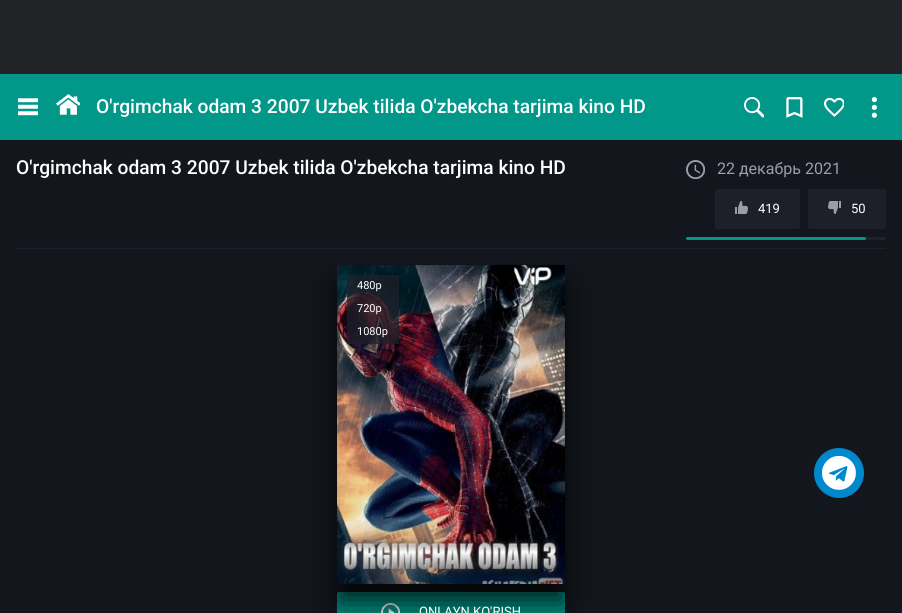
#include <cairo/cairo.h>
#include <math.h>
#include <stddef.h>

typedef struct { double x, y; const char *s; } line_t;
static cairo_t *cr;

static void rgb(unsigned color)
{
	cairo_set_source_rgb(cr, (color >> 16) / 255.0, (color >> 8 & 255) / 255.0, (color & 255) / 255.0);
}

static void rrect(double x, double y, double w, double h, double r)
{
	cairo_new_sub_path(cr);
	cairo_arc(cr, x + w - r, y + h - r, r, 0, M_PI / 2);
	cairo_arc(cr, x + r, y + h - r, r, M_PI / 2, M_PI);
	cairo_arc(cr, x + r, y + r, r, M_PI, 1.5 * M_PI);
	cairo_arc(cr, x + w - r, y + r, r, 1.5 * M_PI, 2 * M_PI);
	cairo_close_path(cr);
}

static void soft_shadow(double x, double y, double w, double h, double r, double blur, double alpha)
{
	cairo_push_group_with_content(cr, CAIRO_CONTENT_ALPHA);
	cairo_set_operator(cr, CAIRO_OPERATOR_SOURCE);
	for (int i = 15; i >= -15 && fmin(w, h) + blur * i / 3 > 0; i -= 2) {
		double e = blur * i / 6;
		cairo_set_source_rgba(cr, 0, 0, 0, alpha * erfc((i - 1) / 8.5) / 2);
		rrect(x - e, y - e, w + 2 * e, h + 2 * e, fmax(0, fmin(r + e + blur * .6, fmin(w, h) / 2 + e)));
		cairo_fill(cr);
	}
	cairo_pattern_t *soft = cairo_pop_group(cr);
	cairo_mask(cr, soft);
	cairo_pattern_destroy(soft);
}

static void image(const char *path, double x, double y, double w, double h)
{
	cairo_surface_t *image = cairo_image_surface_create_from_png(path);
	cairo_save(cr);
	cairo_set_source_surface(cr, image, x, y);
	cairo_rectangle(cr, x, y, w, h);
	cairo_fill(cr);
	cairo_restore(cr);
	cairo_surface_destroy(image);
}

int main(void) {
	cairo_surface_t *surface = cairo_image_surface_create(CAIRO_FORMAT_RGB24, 902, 613);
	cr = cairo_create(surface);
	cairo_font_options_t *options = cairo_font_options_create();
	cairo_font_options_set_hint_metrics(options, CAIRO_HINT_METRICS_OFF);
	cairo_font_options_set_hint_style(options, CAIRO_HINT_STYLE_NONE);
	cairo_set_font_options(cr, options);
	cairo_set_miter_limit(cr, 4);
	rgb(0x212327);
	cairo_paint(cr);
	rgb(0x13161d);
	cairo_rectangle(cr, 0, 140, 902, 473);
	cairo_fill(cr);
	rgb(0x019789);
	cairo_rectangle(cr, 0, 74, 902, 66);
	cairo_fill(cr);
	image("img/1.png", 18, 98, 20, 18);
	image("img/2.png", 56, 94, 24, 21);
	image("img/3.png", 744, 97, 20, 21);
	image("img/4.png", 786, 97, 17, 21);
	image("img/5.png", 824, 97, 20, 20);
	image("img/6.png", 871, 97, 6, 21);
	rgb(0x1e2029);
	cairo_rectangle(cr, 16, 248, 870, 1);
	cairo_fill(cr);
	image("img/7.png", 686, 160, 19, 19);
	rrect(715, 189, 85, 40, 2);
	cairo_fill(cr);
	image("img/8.png", 735, 201, 13, 13);
	rrect(808, 189, 78, 40, 2);
	cairo_fill(cr);
	image("img/9.png", 828, 201, 13, 13);
	rgb(0x1e222d);
	rrect(686, 237, 200, 3, 1.5);
	cairo_fill(cr);
	rgb(0x019789);
	rrect(686, 237, 180, 3, 1.5);
	cairo_fill(cr);
	rgb(0x00998a);
	rrect(337, 592, 228, 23, 2);
	cairo_fill(cr);
	image("img/11.png", 381, 603, 19, 10);
	rgb(0x000000);
	soft_shadow(337, 285, 228, 319, 0, 15, 0.8);
	image("img/10.png", 337, 265, 228, 319);
	cairo_set_source_rgba(cr, 0.118, 0.125, 0.161, 0.74);
	cairo_rectangle(cr, 347, 275, 52, 23);
	cairo_fill(cr);
	cairo_rectangle(cr, 347, 298, 52, 23);
	cairo_fill(cr);
	cairo_rectangle(cr, 347, 321, 52, 23);
	cairo_fill(cr);
	rgb(0x0088cc);
	cairo_arc(cr, 839, 473, 25, 0, 2 * M_PI);
	cairo_fill(cr);
	image("img/12.png", 822, 455, 34, 35);
	cairo_select_font_face(cr, "Roboto Medium", CAIRO_FONT_SLANT_NORMAL, CAIRO_FONT_WEIGHT_NORMAL);
	cairo_set_font_size(cr, 19.2);
	rgb(0xffffff);
	cairo_move_to(cr, 96, 113);
	cairo_show_text(cr, "O'rgimchak odam 3 2007 Uzbek tilida O'zbekcha tarjima kino HD");
	cairo_move_to(cr, 16, 174);
	cairo_show_text(cr, "O'rgimchak odam 3 2007 Uzbek tilida O'zbekcha tarjima kino HD");
	cairo_select_font_face(cr, "Roboto", CAIRO_FONT_SLANT_NORMAL, CAIRO_FONT_WEIGHT_NORMAL);
	cairo_set_font_size(cr, 16);
	rgb(0x9b9dab);
	cairo_move_to(cr, 717, 174);
	cairo_show_text(cr, "22 декабрь 2021");
	cairo_set_font_size(cr, 13);
	rgb(0xffffff);
	cairo_move_to(cr, 758, 213);
	cairo_show_text(cr, "419");
	cairo_move_to(cr, 851, 213);
	cairo_show_text(cr, "50");
	cairo_set_font_size(cr, 11);
	{
		static const line_t items[] = {
			{357, 289, "480p"},
			{357, 312, "720p"},
			{357, 335, "1080p"},
		};
		for (size_t i = 0; i < sizeof items / sizeof *items; i++) {
			cairo_move_to(cr, items[i].x, items[i].y);
			cairo_show_text(cr, items[i].s);
		}
	}
	cairo_set_font_size(cr, 13);
	cairo_move_to(cr, 419, 616);
	cairo_show_text(cr, "ONLAYN KO'RISH");
	cairo_surface_write_to_png(surface, "page.png");
	cairo_font_options_destroy(options);
	cairo_destroy(cr);
	cairo_surface_destroy(surface);
	return 0;
}
